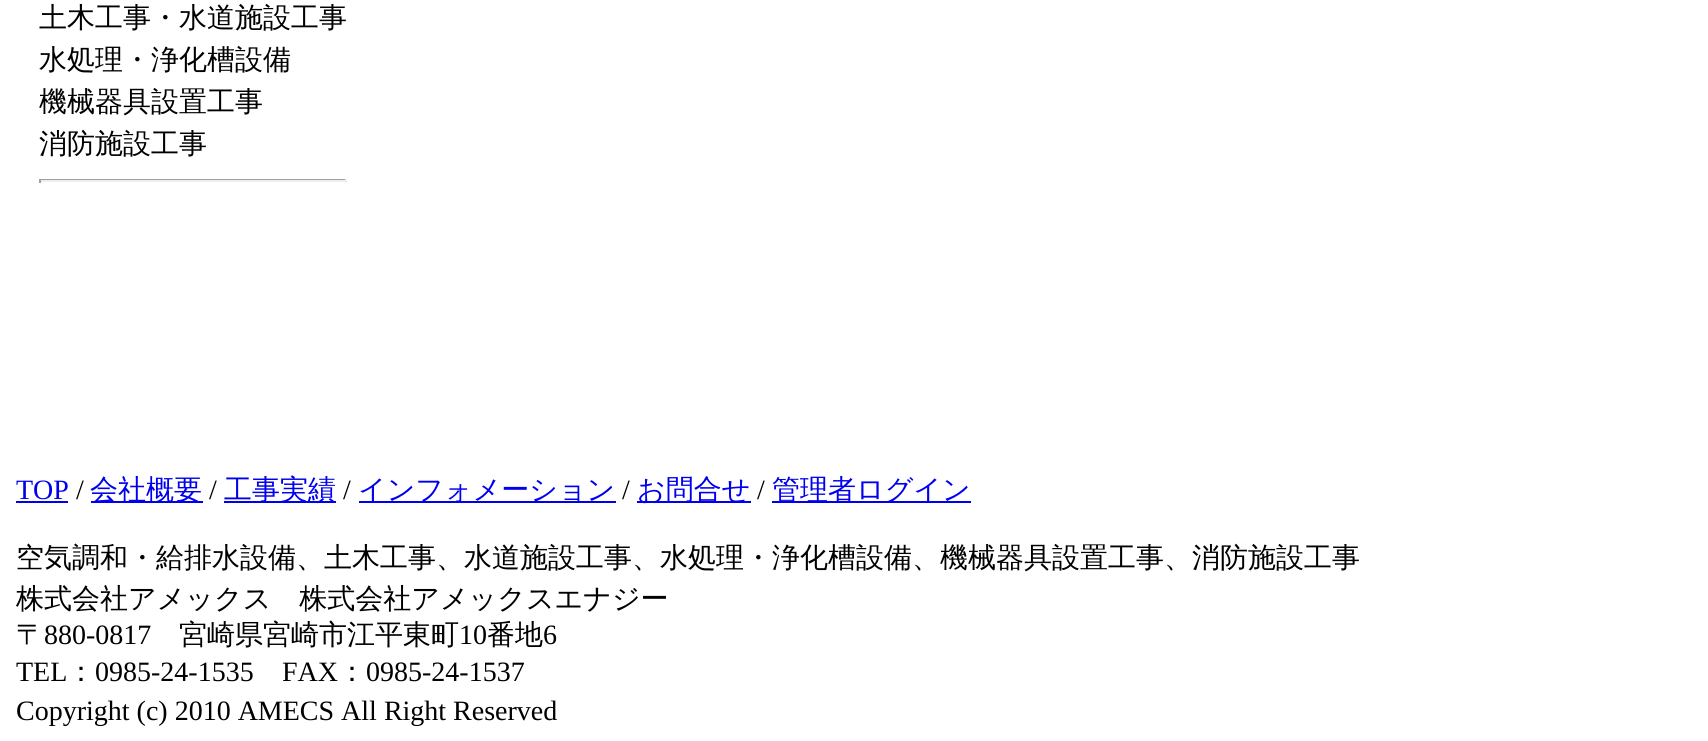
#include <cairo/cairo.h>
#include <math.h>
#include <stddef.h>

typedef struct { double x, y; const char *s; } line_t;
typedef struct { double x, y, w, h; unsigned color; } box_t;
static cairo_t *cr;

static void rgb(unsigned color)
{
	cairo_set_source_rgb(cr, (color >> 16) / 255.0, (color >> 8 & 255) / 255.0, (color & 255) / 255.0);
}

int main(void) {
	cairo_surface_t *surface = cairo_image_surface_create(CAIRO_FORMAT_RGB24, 1708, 741);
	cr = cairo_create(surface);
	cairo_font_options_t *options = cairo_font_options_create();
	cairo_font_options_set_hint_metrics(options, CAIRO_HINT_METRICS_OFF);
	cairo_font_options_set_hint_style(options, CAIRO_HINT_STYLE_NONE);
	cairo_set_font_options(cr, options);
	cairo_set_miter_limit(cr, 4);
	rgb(0xffffff);
	cairo_paint(cr);
	{
		static const box_t items[] = {
			{39, 179, 308, 1, 0x9f9f9f},
			{345, 179, 2, 4, 0xeeeeee},
			{39, 180, 308, 2, 0xeeeeee},
			{39, 179, 2, 4, 0x9f9f9f},
			{16, 501, 52, 2, 0x0000ee},
			{91, 501, 112, 2, 0x0000ee},
			{224, 501, 112, 2, 0x0000ee},
			{359, 501, 257, 2, 0x0000ee},
			{637, 501, 114, 2, 0x0000ee},
			{772, 501, 199, 2, 0x0000ee},
		};
		for (size_t i = 0; i < sizeof items / sizeof *items; i++) {
			rgb(items[i].color);
			cairo_rectangle(cr, items[i].x, items[i].y, items[i].w, items[i].h);
			cairo_fill(cr);
		}
	}
	cairo_select_font_face(cr, "WenQuanYi Zen Hei Medium", CAIRO_FONT_SLANT_NORMAL, CAIRO_FONT_WEIGHT_NORMAL);
	cairo_set_font_size(cr, 28);
	rgb(0x000000);
	{
		static const line_t items[] = {
			{39, 27, "土木工事・水道施設工事"},
			{39, 69, "水処理・浄化槽設備"},
			{39, 111, "機械器具設置工事"},
			{39, 153, "消防施設工事"},
		};
		for (size_t i = 0; i < sizeof items / sizeof *items; i++) {
			cairo_move_to(cr, items[i].x, items[i].y);
			cairo_show_text(cr, items[i].s);
		}
	}
	cairo_select_font_face(cr, "Liberation Serif", CAIRO_FONT_SLANT_NORMAL, CAIRO_FONT_WEIGHT_NORMAL);
	rgb(0x0000ee);
	cairo_move_to(cr, 16, 499);
	cairo_show_text(cr, "TOP");
	rgb(0x000000);
	cairo_move_to(cr, 76, 499);
	cairo_show_text(cr, "/");
	cairo_select_font_face(cr, "WenQuanYi Zen Hei Medium", CAIRO_FONT_SLANT_NORMAL, CAIRO_FONT_WEIGHT_NORMAL);
	rgb(0x0000ee);
	cairo_move_to(cr, 90, 499);
	cairo_show_text(cr, "会社概要");
	cairo_select_font_face(cr, "Liberation Serif", CAIRO_FONT_SLANT_NORMAL, CAIRO_FONT_WEIGHT_NORMAL);
	rgb(0x000000);
	cairo_move_to(cr, 209, 499);
	cairo_show_text(cr, "/");
	cairo_select_font_face(cr, "WenQuanYi Zen Hei Medium", CAIRO_FONT_SLANT_NORMAL, CAIRO_FONT_WEIGHT_NORMAL);
	rgb(0x0000ee);
	cairo_move_to(cr, 224, 499);
	cairo_show_text(cr, "工事実績");
	cairo_select_font_face(cr, "Liberation Serif", CAIRO_FONT_SLANT_NORMAL, CAIRO_FONT_WEIGHT_NORMAL);
	rgb(0x000000);
	cairo_move_to(cr, 343, 499);
	cairo_show_text(cr, "/");
	cairo_select_font_face(cr, "WenQuanYi Zen Hei Medium", CAIRO_FONT_SLANT_NORMAL, CAIRO_FONT_WEIGHT_NORMAL);
	rgb(0x0000ee);
	cairo_move_to(cr, 358, 499);
	cairo_show_text(cr, "インフォメーション");
	cairo_select_font_face(cr, "Liberation Serif", CAIRO_FONT_SLANT_NORMAL, CAIRO_FONT_WEIGHT_NORMAL);
	rgb(0x000000);
	cairo_move_to(cr, 622, 499);
	cairo_show_text(cr, "/");
	cairo_select_font_face(cr, "WenQuanYi Zen Hei Medium", CAIRO_FONT_SLANT_NORMAL, CAIRO_FONT_WEIGHT_NORMAL);
	rgb(0x0000ee);
	cairo_move_to(cr, 637, 499);
	cairo_show_text(cr, "お問合せ");
	cairo_select_font_face(cr, "Liberation Serif", CAIRO_FONT_SLANT_NORMAL, CAIRO_FONT_WEIGHT_NORMAL);
	rgb(0x000000);
	cairo_move_to(cr, 757, 499);
	cairo_show_text(cr, "/");
	cairo_select_font_face(cr, "WenQuanYi Zen Hei Medium", CAIRO_FONT_SLANT_NORMAL, CAIRO_FONT_WEIGHT_NORMAL);
	rgb(0x0000ee);
	cairo_move_to(cr, 772, 499);
	cairo_show_text(cr, "管理者ログイン");
	rgb(0x000000);
	{
		static const line_t items[] = {
			{16, 567, "空気調和・給排水設備、土木工事、水道施設工事、水処理・浄化槽設備、機械器具設置工事、消防施設工事"},
			{16, 608, "株式会社アメックス　株式会社アメックスエナジー"},
			{16, 644, "〒"},
		};
		for (size_t i = 0; i < sizeof items / sizeof *items; i++) {
			cairo_move_to(cr, items[i].x, items[i].y);
			cairo_show_text(cr, items[i].s);
		}
	}
	cairo_select_font_face(cr, "Liberation Serif", CAIRO_FONT_SLANT_NORMAL, CAIRO_FONT_WEIGHT_NORMAL);
	cairo_move_to(cr, 44, 644);
	cairo_show_text(cr, "880-0817");
	cairo_select_font_face(cr, "WenQuanYi Zen Hei Medium", CAIRO_FONT_SLANT_NORMAL, CAIRO_FONT_WEIGHT_NORMAL);
	cairo_move_to(cr, 179, 644);
	cairo_show_text(cr, "宮崎県宮崎市江平東町");
	cairo_select_font_face(cr, "Liberation Serif", CAIRO_FONT_SLANT_NORMAL, CAIRO_FONT_WEIGHT_NORMAL);
	cairo_move_to(cr, 459, 644);
	cairo_show_text(cr, "10");
	cairo_select_font_face(cr, "WenQuanYi Zen Hei Medium", CAIRO_FONT_SLANT_NORMAL, CAIRO_FONT_WEIGHT_NORMAL);
	cairo_move_to(cr, 487, 644);
	cairo_show_text(cr, "番地");
	cairo_select_font_face(cr, "Liberation Serif", CAIRO_FONT_SLANT_NORMAL, CAIRO_FONT_WEIGHT_NORMAL);
	cairo_move_to(cr, 543, 644);
	cairo_show_text(cr, "6");
	cairo_move_to(cr, 16, 681);
	cairo_show_text(cr, "TEL");
	cairo_select_font_face(cr, "WenQuanYi Zen Hei Medium", CAIRO_FONT_SLANT_NORMAL, CAIRO_FONT_WEIGHT_NORMAL);
	cairo_move_to(cr, 67, 681);
	cairo_show_text(cr, "：");
	cairo_select_font_face(cr, "Liberation Serif", CAIRO_FONT_SLANT_NORMAL, CAIRO_FONT_WEIGHT_NORMAL);
	cairo_move_to(cr, 95, 681);
	cairo_show_text(cr, "0985-24-1535");
	cairo_move_to(cr, 282, 681);
	cairo_show_text(cr, "FAX");
	cairo_select_font_face(cr, "WenQuanYi Zen Hei Medium", CAIRO_FONT_SLANT_NORMAL, CAIRO_FONT_WEIGHT_NORMAL);
	cairo_move_to(cr, 338, 681);
	cairo_show_text(cr, "：");
	cairo_select_font_face(cr, "Liberation Serif", CAIRO_FONT_SLANT_NORMAL, CAIRO_FONT_WEIGHT_NORMAL);
	cairo_move_to(cr, 366, 681);
	cairo_show_text(cr, "0985-24-1537");
	cairo_move_to(cr, 16, 720);
	cairo_show_text(cr, "Copyright (c) 2010 AMECS All Right Reserved");
	cairo_surface_write_to_png(surface, "page.png");
	cairo_font_options_destroy(options);
	cairo_destroy(cr);
	cairo_surface_destroy(surface);
	return 0;
}
